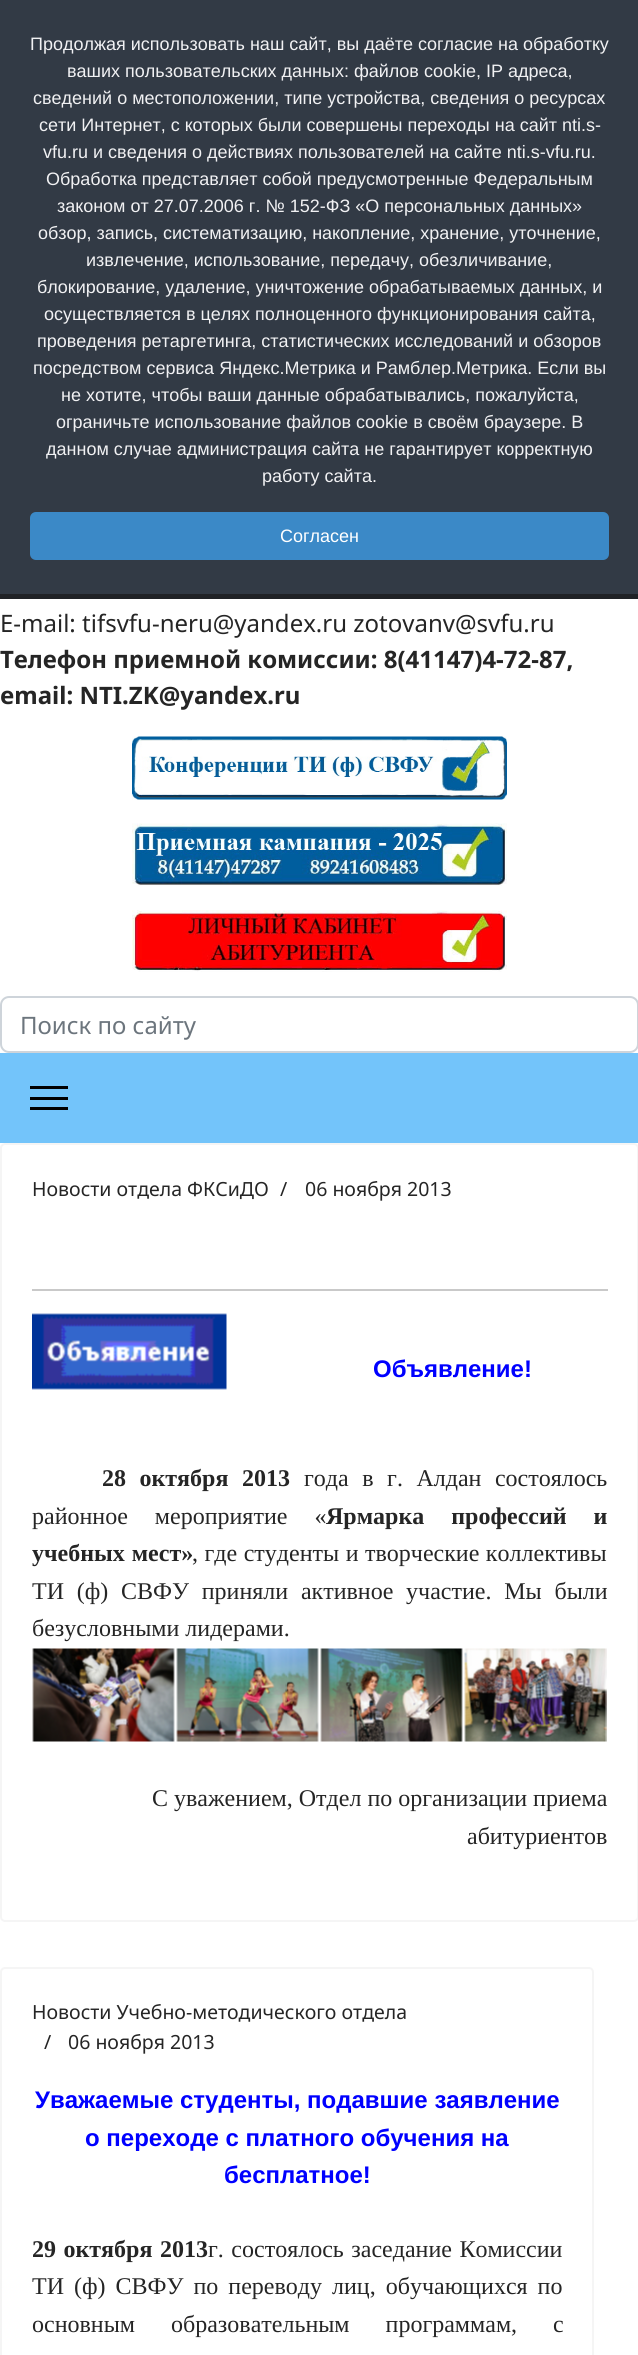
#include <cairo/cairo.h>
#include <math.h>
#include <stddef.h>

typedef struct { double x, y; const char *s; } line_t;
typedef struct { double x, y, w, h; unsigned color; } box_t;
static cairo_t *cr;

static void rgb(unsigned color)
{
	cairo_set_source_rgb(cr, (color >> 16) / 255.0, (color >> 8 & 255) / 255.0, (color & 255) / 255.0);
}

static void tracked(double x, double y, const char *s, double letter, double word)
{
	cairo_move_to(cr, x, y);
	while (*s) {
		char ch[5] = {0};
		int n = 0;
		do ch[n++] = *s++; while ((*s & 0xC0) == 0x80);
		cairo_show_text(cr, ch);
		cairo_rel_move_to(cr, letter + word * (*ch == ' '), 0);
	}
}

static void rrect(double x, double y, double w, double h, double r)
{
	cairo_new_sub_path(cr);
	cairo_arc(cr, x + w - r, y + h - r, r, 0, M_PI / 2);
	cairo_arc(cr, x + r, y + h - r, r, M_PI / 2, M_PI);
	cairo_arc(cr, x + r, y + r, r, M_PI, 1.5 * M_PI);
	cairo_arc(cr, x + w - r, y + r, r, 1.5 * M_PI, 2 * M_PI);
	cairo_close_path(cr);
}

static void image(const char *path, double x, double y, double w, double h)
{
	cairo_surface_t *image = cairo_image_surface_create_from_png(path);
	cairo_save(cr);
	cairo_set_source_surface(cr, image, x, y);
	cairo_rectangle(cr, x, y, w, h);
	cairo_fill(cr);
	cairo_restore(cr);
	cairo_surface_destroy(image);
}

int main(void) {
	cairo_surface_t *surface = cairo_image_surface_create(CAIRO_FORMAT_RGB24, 638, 2355);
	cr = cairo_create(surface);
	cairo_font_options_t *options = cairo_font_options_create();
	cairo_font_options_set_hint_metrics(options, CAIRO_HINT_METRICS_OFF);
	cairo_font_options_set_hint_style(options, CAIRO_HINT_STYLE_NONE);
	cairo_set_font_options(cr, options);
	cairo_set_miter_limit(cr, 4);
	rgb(0xffffff);
	cairo_paint(cr);
	rgb(0x323a45);
	cairo_rectangle(cr, 0, 0, 638, 594);
	cairo_fill(cr);
	rgb(0x202226);
	cairo_rectangle(cr, 0, 594, 638, 5);
	cairo_fill(cr);
	rgb(0x3b89c7);
	rrect(30, 512, 579, 48, 6);
	cairo_fill(cr);
	image("img/1.png", 132, 736, 375, 64);
	image("img/2.png", 132, 823, 375, 63);
	image("img/3.png", 132, 910, 375, 62);
	rrect(1, 997, 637, 55, 8);
	rgb(0xced4da);
	cairo_stroke(cr);
	{
		static const box_t items[] = {
			{0, 1053, 638, 90, 0x73c4fa},
			{30, 1086, 38, 3, 0x000000},
			{30, 1097, 38, 3, 0x000000},
			{30, 1107, 38, 3, 0x000000},
		};
		for (size_t i = 0; i < sizeof items / sizeof *items; i++) {
			rgb(items[i].color);
			cairo_rectangle(cr, items[i].x, items[i].y, items[i].w, items[i].h);
			cairo_fill(cr);
		}
	}
	rrect(1, 1144, 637, 777, 4);
	rgb(0xf5f5f5);
	cairo_stroke(cr);
	rgb(0xc9c9c9);
	cairo_rectangle(cr, 32, 1289, 576, 2);
	cairo_fill(cr);
	image("img/4.png", 32, 1313, 195, 77);
	image("img/5.png", 32, 1648, 143, 94);
	image("img/6.png", 176, 1648, 143, 94);
	image("img/7.png", 320, 1648, 143, 94);
	image("img/8.png", 464, 1648, 143, 94);
	rrect(1, 1968, 592, 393, 4);
	rgb(0xf5f5f5);
	cairo_stroke(cr);
	cairo_select_font_face(cr, "Liberation Sans", CAIRO_FONT_SLANT_NORMAL, CAIRO_FONT_WEIGHT_NORMAL);
	cairo_set_font_size(cr, 18);
	rgb(0xf1f1f3);
	{
		static const line_t items[] = {
			{30, 50, "Продолжая использовать наш сайт, вы даёте согласие на обработку"},
			{67, 77, "ваших пользовательских данных: файлов cookie, IP адреса,"},
			{33, 104, "сведений о местоположении, типе устройства, сведения о ресурсах"},
			{39, 131, "сети Интернет, с которых были совершены переходы на сайт nti.s-"},
			{43, 158, "vfu.ru и сведения о действиях пользователей на сайте nti.s-vfu.ru."},
			{46, 185, "Обработка представляет собой предусмотренные Федеральным"},
			{57, 212, "законом от 27.07.2006 г. № 152-ФЗ «О персональных данных»"},
			{38, 239, "обзор, запись, систематизацию, накопление, хранение, уточнение,"},
			{86, 266, "извлечение, использование, передачу, обезличивание,"},
			{37, 293, "блокирование, удаление, уничтожение обрабатываемых данных, и"},
			{44, 320, "осуществляется в целях полноценного функционирования сайта,"},
			{37, 347, "проведения ретаргетинга, статистических исследований и обзоров"},
			{33, 374, "посредством сервиса Яндекс.Метрика и Рамблер.Метрика. Если вы"},
			{61, 401, "не хотите, чтобы ваши данные обрабатывались, пожалуйста,"},
			{56, 428, "ограничьте использование файлов cookie в своём браузере. В"},
			{46, 455, "данном случае администрация сайта не гарантирует корректную"},
			{262, 482, "работу сайта."},
		};
		for (size_t i = 0; i < sizeof items / sizeof *items; i++) {
			cairo_move_to(cr, items[i].x, items[i].y);
			cairo_show_text(cr, items[i].s);
		}
	}
	rgb(0xffffff);
	cairo_move_to(cr, 280, 542);
	cairo_show_text(cr, "Согласен");
	cairo_select_font_face(cr, "Noto Sans", CAIRO_FONT_SLANT_NORMAL, CAIRO_FONT_WEIGHT_NORMAL);
	cairo_set_font_size(cr, 24);
	rgb(0x252525);
	cairo_move_to(cr, 0, 632);
	cairo_show_text(cr, "E-mail: tifsvfu-neru@yandex.ru zotovanv@svfu.ru");
	cairo_select_font_face(cr, "Noto Sans", CAIRO_FONT_SLANT_NORMAL, CAIRO_FONT_WEIGHT_BOLD);
	cairo_move_to(cr, 0, 668);
	cairo_show_text(cr, "Телефон приемной комиссии: 8(41147)4-72-87,");
	cairo_move_to(cr, 0, 704);
	cairo_show_text(cr, "email: NTI.ZK@yandex.ru");
	cairo_select_font_face(cr, "Noto Sans", CAIRO_FONT_SLANT_NORMAL, CAIRO_FONT_WEIGHT_NORMAL);
	rgb(0x6c757d);
	cairo_move_to(cr, 20, 1034);
	cairo_show_text(cr, "Поиск по сайту");
	cairo_set_font_size(cr, 19.5);
	rgb(0x252525);
	{
		static const line_t items[] = {
			{32, 1196, "Новости отдела ФКСиДО"},
			{280, 1196, "/"},
			{305, 1196, "06 ноября 2013"},
		};
		for (size_t i = 0; i < sizeof items / sizeof *items; i++) {
			cairo_move_to(cr, items[i].x, items[i].y);
			cairo_show_text(cr, items[i].s);
		}
	}
	cairo_select_font_face(cr, "Liberation Sans", CAIRO_FONT_SLANT_NORMAL, CAIRO_FONT_WEIGHT_BOLD);
	cairo_set_font_size(cr, 24);
	rgb(0x0000ff);
	cairo_move_to(cr, 373, 1377);
	cairo_show_text(cr, "Объявление!");
	cairo_select_font_face(cr, "Liberation Serif", CAIRO_FONT_SLANT_NORMAL, CAIRO_FONT_WEIGHT_BOLD);
	rgb(0x252525);
	tracked(102, 1486, "28 октября 2013", 0, 7.5);
	cairo_select_font_face(cr, "Liberation Serif", CAIRO_FONT_SLANT_NORMAL, CAIRO_FONT_WEIGHT_NORMAL);
	tracked(304, 1486, "года в г. Алдан состоялось", 0, 7.5);
	tracked(32, 1524, "районное мероприятие «", 0, 21);
	cairo_select_font_face(cr, "Liberation Serif", CAIRO_FONT_SLANT_NORMAL, CAIRO_FONT_WEIGHT_BOLD);
	tracked(326, 1524, "Ярмарка профессий и", 0, 21);
	tracked(32, 1561, "учебных мест»", 0, 1);
	cairo_select_font_face(cr, "Liberation Serif", CAIRO_FONT_SLANT_NORMAL, CAIRO_FONT_WEIGHT_NORMAL);
	tracked(192, 1561, ", где студенты и творческие коллективы", 0, 0.5);
	tracked(32, 1599, "ТИ (ф) СВФУ приняли активное участие. Мы были", 0, 6.75);
	{
		static const line_t items[] = {
			{32, 1636, "безусловными лидерами."},
			{152, 1806, "С уважением, Отдел по организации приема"},
			{467, 1844, "абитуриентов"},
		};
		for (size_t i = 0; i < sizeof items / sizeof *items; i++) {
			cairo_move_to(cr, items[i].x, items[i].y);
			cairo_show_text(cr, items[i].s);
		}
	}
	cairo_select_font_face(cr, "Noto Sans", CAIRO_FONT_SLANT_NORMAL, CAIRO_FONT_WEIGHT_NORMAL);
	cairo_set_font_size(cr, 19.5);
	{
		static const line_t items[] = {
			{32, 2019, "Новости Учебно-методического отдела"},
			{44, 2049, "/"},
			{68, 2049, "06 ноября 2013"},
		};
		for (size_t i = 0; i < sizeof items / sizeof *items; i++) {
			cairo_move_to(cr, items[i].x, items[i].y);
			cairo_show_text(cr, items[i].s);
		}
	}
	cairo_select_font_face(cr, "Liberation Sans", CAIRO_FONT_SLANT_NORMAL, CAIRO_FONT_WEIGHT_BOLD);
	cairo_set_font_size(cr, 24);
	rgb(0x0000ff);
	{
		static const line_t items[] = {
			{35, 2108, "Уважаемые студенты, подавшие заявление"},
			{85, 2146, "о переходе с платного обучения на"},
			{224, 2183, "бесплатное!"},
		};
		for (size_t i = 0; i < sizeof items / sizeof *items; i++) {
			cairo_move_to(cr, items[i].x, items[i].y);
			cairo_show_text(cr, items[i].s);
		}
	}
	cairo_select_font_face(cr, "Liberation Serif", CAIRO_FONT_SLANT_NORMAL, CAIRO_FONT_WEIGHT_BOLD);
	rgb(0x252525);
	tracked(32, 2257, "29 октября 2013", 0, 1.5);
	cairo_select_font_face(cr, "Liberation Serif", CAIRO_FONT_SLANT_NORMAL, CAIRO_FONT_WEIGHT_NORMAL);
	tracked(208, 2257, "г. состоялось заседание Комиссии", 0, 1.5);
	tracked(32, 2294, "ТИ (ф) СВФУ по переводу лиц, обучающихся по", 0, 4);
	tracked(32, 2332, "основным образовательным программам, с", 0, 30);
	cairo_surface_write_to_png(surface, "page.png");
	cairo_font_options_destroy(options);
	cairo_destroy(cr);
	cairo_surface_destroy(surface);
	return 0;
}
